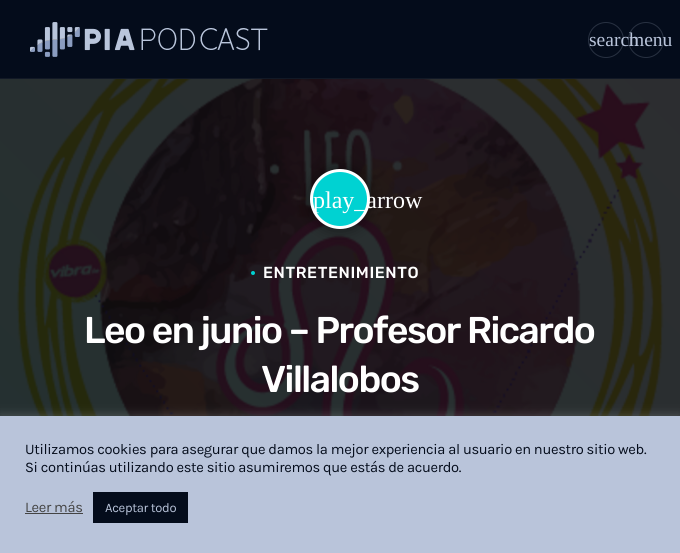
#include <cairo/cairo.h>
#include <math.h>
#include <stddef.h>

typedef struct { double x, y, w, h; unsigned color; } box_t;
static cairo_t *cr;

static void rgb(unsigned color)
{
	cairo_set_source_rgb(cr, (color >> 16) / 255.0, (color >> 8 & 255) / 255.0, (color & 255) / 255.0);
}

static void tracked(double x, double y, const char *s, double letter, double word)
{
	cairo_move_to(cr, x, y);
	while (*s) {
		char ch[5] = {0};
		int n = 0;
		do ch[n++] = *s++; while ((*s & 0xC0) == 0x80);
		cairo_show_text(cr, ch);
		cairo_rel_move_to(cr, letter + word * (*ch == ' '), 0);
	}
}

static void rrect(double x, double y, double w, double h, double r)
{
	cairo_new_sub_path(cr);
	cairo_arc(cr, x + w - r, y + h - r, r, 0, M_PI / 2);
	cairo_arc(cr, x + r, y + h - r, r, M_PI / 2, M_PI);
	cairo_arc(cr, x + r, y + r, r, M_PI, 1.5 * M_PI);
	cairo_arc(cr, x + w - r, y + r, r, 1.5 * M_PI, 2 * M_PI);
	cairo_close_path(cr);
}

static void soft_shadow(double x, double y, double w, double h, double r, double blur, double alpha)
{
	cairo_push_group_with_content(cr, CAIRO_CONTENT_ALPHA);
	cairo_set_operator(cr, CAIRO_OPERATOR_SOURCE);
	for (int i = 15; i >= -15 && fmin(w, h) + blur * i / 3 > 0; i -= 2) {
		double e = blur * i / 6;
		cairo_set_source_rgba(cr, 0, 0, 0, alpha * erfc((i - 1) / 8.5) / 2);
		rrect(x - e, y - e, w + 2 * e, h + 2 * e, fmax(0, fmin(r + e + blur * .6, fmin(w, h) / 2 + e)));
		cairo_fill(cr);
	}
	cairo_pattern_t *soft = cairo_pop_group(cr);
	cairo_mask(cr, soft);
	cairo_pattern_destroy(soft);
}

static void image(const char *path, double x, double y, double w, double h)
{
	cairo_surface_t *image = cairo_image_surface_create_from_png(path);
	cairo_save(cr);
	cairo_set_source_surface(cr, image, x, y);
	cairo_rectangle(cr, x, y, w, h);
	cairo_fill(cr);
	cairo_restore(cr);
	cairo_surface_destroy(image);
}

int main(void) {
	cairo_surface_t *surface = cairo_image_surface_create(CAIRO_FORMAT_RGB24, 680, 553);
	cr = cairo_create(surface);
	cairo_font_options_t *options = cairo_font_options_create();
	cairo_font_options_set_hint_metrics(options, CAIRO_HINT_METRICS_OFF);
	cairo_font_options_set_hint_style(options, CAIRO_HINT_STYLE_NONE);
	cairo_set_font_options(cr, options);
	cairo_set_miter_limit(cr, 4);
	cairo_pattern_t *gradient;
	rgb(0xffffff);
	cairo_paint(cr);
	rgb(0x040c1b);
	cairo_rectangle(cr, 0, 0, 680, 78);
	cairo_fill(cr);
	rgb(0x121926);
	cairo_rectangle(cr, 0, 78, 680, 1);
	cairo_fill(cr);
	image("img/1.png", 30, 22, 238, 35);
	cairo_arc(cr, 606, 40, 17.5, 0, 2 * M_PI);
	rgb(0x283141);
	cairo_set_line_width(cr, 1);
	cairo_stroke(cr);
	cairo_arc(cr, 646, 40, 17.5, 0, 2 * M_PI);
	cairo_stroke(cr);
	image("img/2.png", 0, 79, 680, 337);
	gradient = cairo_pattern_create_linear(59, 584, 622, 20);
	cairo_pattern_add_color_stop_rgba(gradient, 0, 0, 0.165, 0.165, 0.3);
	cairo_pattern_add_color_stop_rgba(gradient, 1, 0.11, 0.122, 0.153, 0.3);
	cairo_set_source(cr, gradient);
	cairo_pattern_destroy(gradient);
	cairo_rectangle(cr, 0, 79, 680, 337);
	cairo_fill(cr);
	rgb(0x000000);
	soft_shadow(310, 169, 60, 60, 30, 7.5, 0.5);
	rgb(0x00d2d2);
	cairo_arc(cr, 340, 199, 28.5, 0, 2 * M_PI);
	cairo_fill_preserve(cr);
	rgb(0xffffff);
	cairo_set_line_width(cr, 3);
	cairo_stroke(cr);
	rgb(0x00d2d2);
	cairo_arc(cr, 253, 273, 2, 0, 2 * M_PI);
	cairo_fill(cr);
	rgb(0xacabab);
	soft_shadow(0, 415, 680, 137, 0, 5, 0.3);
	{
		static const box_t items[] = {
			{0, 416, 680, 137, 0xb9c4da},
			{25, 513, 58, 1, 0x444444},
			{93, 492, 95, 31, 0x040c1b},
		};
		for (size_t i = 0; i < sizeof items / sizeof *items; i++) {
			rgb(items[i].color);
			cairo_rectangle(cr, items[i].x, items[i].y, items[i].w, items[i].h);
			cairo_fill(cr);
		}
	}
	cairo_select_font_face(cr, "Liberation Serif", CAIRO_FONT_SLANT_NORMAL, CAIRO_FONT_WEIGHT_NORMAL);
	cairo_set_font_size(cr, 19.5);
	rgb(0xb9c4da);
	cairo_move_to(cr, 589, 46);
	cairo_show_text(cr, "search");
	cairo_move_to(cr, 629, 46);
	cairo_show_text(cr, "menu");
	cairo_set_font_size(cr, 24);
	rgb(0xffffff);
	cairo_move_to(cr, 313, 208);
	cairo_show_text(cr, "play_arrow");
	cairo_select_font_face(cr, "Rubik Medium", CAIRO_FONT_SLANT_NORMAL, CAIRO_FONT_WEIGHT_NORMAL);
	cairo_set_font_size(cr, 16);
	tracked(263, 278, "ENTRETENIMIENTO", 0.6, 0);
	cairo_set_font_size(cr, 37.25);
	tracked(84, 343, "Leo en junio – Profesor Ricardo", -1.5, 0);
	tracked(261, 392, "Villalobos", -1.5, 0);
	cairo_select_font_face(cr, "Karla", CAIRO_FONT_SLANT_NORMAL, CAIRO_FONT_WEIGHT_NORMAL);
	cairo_set_font_size(cr, 14.65);
	rgb(0x040c1b);
	tracked(25, 454, "Utilizamos cookies para asegurar que damos la mejor experiencia al usuario en nuestro sitio web.", -0.32, 0);
	tracked(25, 472, "Si continúas utilizando este sitio asumiremos que estás de acuerdo.", -0.32, 0);
	rgb(0x444444);
	tracked(25, 512, "Leer más", -0.32, 0);
	cairo_set_font_size(cr, 13);
	rgb(0xb9c4da);
	tracked(105, 512, "Aceptar todo", -0.32, 0);
	cairo_surface_write_to_png(surface, "page.png");
	cairo_font_options_destroy(options);
	cairo_destroy(cr);
	cairo_surface_destroy(surface);
	return 0;
}
